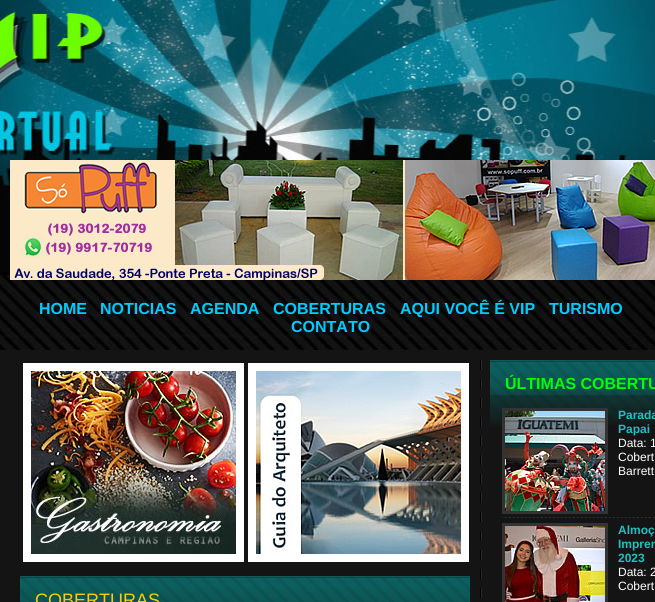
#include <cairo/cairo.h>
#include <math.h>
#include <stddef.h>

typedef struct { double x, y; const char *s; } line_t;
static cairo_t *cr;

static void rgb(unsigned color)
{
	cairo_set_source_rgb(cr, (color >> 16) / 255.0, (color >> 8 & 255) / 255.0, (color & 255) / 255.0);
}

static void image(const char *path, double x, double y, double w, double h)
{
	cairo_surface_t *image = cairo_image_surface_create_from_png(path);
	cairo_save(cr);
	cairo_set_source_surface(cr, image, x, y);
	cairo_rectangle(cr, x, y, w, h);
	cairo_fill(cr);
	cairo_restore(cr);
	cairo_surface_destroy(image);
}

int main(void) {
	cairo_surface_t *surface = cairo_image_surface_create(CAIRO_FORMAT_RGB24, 655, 602);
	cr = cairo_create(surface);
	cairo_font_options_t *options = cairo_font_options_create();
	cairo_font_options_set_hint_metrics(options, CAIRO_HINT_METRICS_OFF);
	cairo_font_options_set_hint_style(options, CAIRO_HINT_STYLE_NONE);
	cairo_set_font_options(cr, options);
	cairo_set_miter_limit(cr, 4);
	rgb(0x141414);
	cairo_paint(cr);
	image("img/1.png", 0, 0, 655, 350);
	image("img/2.png", 10, 160, 645, 120);
	image("img/3.png", 480, 360, 2, 238);
	image("img/4.png", 490, 360, 165, 65);
	image("img/5.png", 502, 517, 152, 1);
	cairo_rectangle(cr, 503.5, 409.5, 103, 103);
	rgb(0x333333);
	cairo_set_line_width(cr, 3);
	cairo_stroke(cr);
	image("img/6.png", 505, 411, 100, 100);
	cairo_rectangle(cr, 503.5, 524.5, 103, 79);
	cairo_stroke(cr);
	image("img/7.png", 505, 526, 100, 76);
	cairo_rectangle(cr, 27, 367, 213, 191);
	rgb(0xffffff);
	cairo_set_line_width(cr, 8);
	cairo_stroke(cr);
	image("img/8.png", 31, 371, 205, 183);
	cairo_rectangle(cr, 252, 367, 213, 191);
	cairo_stroke(cr);
	image("img/9.png", 256, 371, 205, 183);
	image("img/10.png", 20, 576, 450, 26);
	cairo_select_font_face(cr, "Liberation Sans", CAIRO_FONT_SLANT_NORMAL, CAIRO_FONT_WEIGHT_BOLD);
	cairo_set_font_size(cr, 16);
	rgb(0x00ccff);
	{
		static const line_t items[] = {
			{39, 314, "HOME"},
			{100, 314, "NOTICIAS"},
			{190, 314, "AGENDA"},
			{273, 314, "COBERTURAS"},
			{400, 314, "AQUI VOCÊ É VIP"},
			{549, 314, "TURISMO"},
			{291, 332, "CONTATO"},
		};
		for (size_t i = 0; i < sizeof items / sizeof *items; i++) {
			cairo_move_to(cr, items[i].x, items[i].y);
			cairo_show_text(cr, items[i].s);
		}
	}
	rgb(0x00ff00);
	cairo_move_to(cr, 505, 389);
	cairo_show_text(cr, "ÚLTIMAS COBERTU");
	cairo_set_font_size(cr, 12);
	rgb(0x1bc2c2);
	cairo_move_to(cr, 618, 419);
	cairo_show_text(cr, "Parada");
	cairo_move_to(cr, 618, 433);
	cairo_show_text(cr, "Papai");
	cairo_select_font_face(cr, "Liberation Sans", CAIRO_FONT_SLANT_NORMAL, CAIRO_FONT_WEIGHT_NORMAL);
	rgb(0xffffff);
	{
		static const line_t items[] = {
			{618, 447, "Data: 1"},
			{618, 461, "Cobert"},
			{618, 475, "Barrett"},
		};
		for (size_t i = 0; i < sizeof items / sizeof *items; i++) {
			cairo_move_to(cr, items[i].x, items[i].y);
			cairo_show_text(cr, items[i].s);
		}
	}
	cairo_select_font_face(cr, "Liberation Sans", CAIRO_FONT_SLANT_NORMAL, CAIRO_FONT_WEIGHT_BOLD);
	rgb(0x1bc2c2);
	{
		static const line_t items[] = {
			{618, 534, "Almoç"},
			{618, 548, "Impren"},
			{618, 562, "2023"},
		};
		for (size_t i = 0; i < sizeof items / sizeof *items; i++) {
			cairo_move_to(cr, items[i].x, items[i].y);
			cairo_show_text(cr, items[i].s);
		}
	}
	cairo_select_font_face(cr, "Liberation Sans", CAIRO_FONT_SLANT_NORMAL, CAIRO_FONT_WEIGHT_NORMAL);
	rgb(0xffffff);
	cairo_move_to(cr, 618, 576);
	cairo_show_text(cr, "Data: 2");
	cairo_move_to(cr, 618, 590);
	cairo_show_text(cr, "Cobert");
	cairo_set_font_size(cr, 18);
	rgb(0xffcc00);
	cairo_move_to(cr, 35, 606);
	cairo_show_text(cr, "COBERTURAS");
	cairo_surface_write_to_png(surface, "page.png");
	cairo_font_options_destroy(options);
	cairo_destroy(cr);
	cairo_surface_destroy(surface);
	return 0;
}
